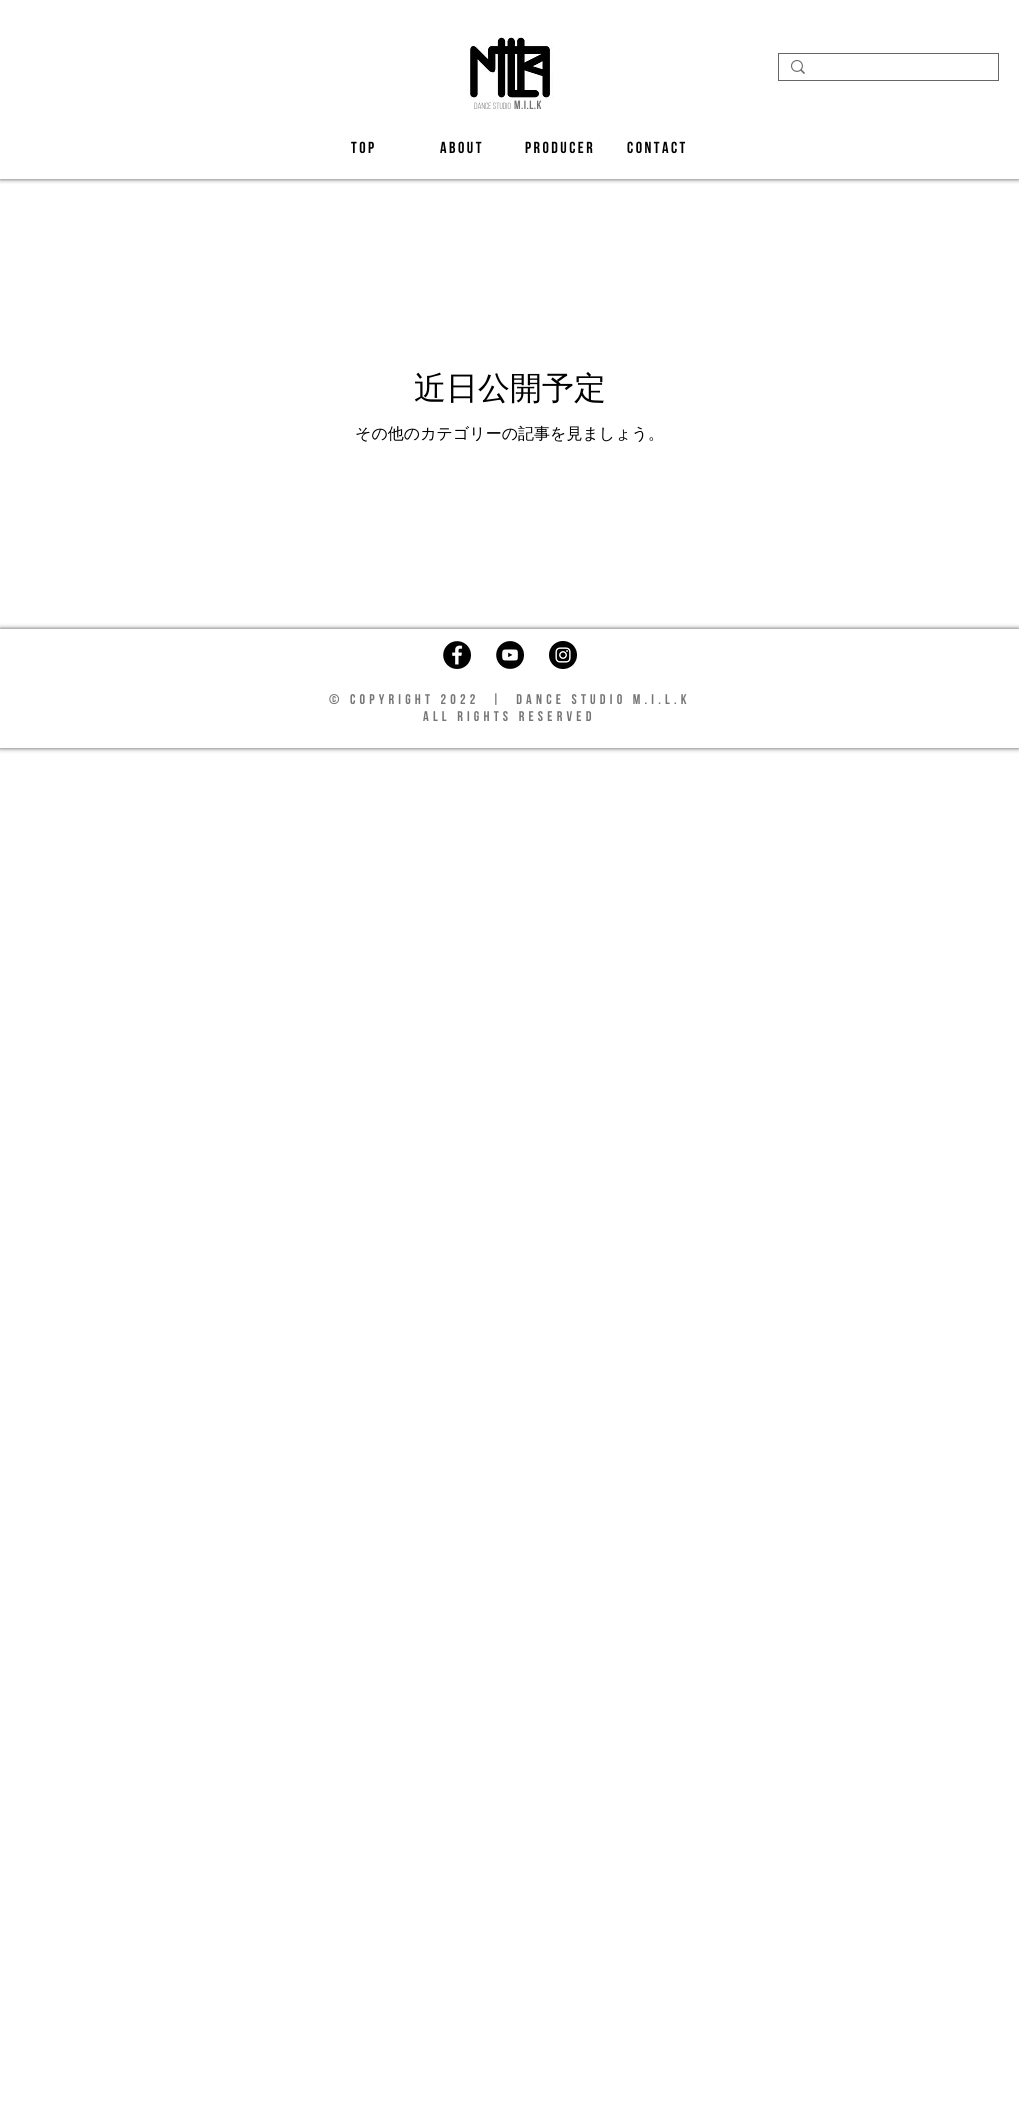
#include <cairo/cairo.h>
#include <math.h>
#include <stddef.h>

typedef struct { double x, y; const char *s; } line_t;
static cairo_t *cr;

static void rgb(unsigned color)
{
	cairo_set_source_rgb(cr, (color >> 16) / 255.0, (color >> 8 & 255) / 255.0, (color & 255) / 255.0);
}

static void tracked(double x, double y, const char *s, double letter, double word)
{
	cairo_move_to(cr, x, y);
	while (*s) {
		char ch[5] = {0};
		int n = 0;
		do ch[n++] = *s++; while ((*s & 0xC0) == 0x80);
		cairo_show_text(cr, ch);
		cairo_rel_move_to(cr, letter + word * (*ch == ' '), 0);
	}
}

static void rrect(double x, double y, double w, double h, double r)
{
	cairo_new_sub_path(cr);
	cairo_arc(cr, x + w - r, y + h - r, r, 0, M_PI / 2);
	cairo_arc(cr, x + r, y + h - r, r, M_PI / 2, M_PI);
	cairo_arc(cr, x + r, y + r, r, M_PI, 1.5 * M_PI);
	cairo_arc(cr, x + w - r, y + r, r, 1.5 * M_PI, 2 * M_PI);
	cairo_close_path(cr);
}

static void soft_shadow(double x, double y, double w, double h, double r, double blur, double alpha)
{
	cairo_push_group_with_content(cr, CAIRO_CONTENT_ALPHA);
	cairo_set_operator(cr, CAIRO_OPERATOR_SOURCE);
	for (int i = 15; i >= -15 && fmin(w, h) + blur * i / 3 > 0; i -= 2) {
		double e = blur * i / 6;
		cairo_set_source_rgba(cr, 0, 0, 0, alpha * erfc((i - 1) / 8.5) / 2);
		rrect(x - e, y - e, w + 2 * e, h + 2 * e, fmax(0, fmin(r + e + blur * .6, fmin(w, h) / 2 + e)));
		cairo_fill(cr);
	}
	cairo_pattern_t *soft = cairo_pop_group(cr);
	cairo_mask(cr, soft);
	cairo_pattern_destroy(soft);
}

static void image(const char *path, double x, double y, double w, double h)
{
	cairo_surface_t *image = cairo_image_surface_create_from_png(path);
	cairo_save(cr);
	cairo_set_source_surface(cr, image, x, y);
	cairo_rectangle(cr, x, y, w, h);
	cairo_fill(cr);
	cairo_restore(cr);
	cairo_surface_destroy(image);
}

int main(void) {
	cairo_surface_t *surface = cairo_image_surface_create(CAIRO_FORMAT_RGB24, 1019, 2106);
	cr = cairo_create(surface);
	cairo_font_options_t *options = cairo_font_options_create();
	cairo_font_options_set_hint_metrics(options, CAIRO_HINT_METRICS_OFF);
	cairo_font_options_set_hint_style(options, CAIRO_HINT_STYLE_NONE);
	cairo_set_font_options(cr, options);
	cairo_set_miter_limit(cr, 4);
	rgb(0xffffff);
	cairo_paint(cr);
	cairo_save(cr);
	cairo_rectangle(cr, 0, 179, 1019, 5);
	cairo_clip(cr);
	rgb(0x000000);
	soft_shadow(0, 0, 1019, 179, 0, 2.5, 0.7);
	cairo_restore(cr);
	image("img/1.png", 469, 37, 84, 63);
	cairo_rectangle(cr, 778.5, 53.5, 220, 27);
	rgb(0x666666);
	cairo_set_line_width(cr, 1);
	cairo_stroke(cr);
	image("img/2.png", 791, 60, 14, 14);
	cairo_save(cr);
	cairo_set_fill_rule(cr, CAIRO_FILL_RULE_EVEN_ODD);
	cairo_new_path(cr);
	cairo_move_to(cr, 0, 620);
	cairo_line_to(cr, 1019, 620);
	cairo_line_to(cr, 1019, 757);
	cairo_line_to(cr, 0, 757);
	cairo_close_path(cr);
	cairo_move_to(cr, 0, 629);
	cairo_line_to(cr, 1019, 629);
	cairo_line_to(cr, 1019, 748);
	cairo_line_to(cr, 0, 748);
	cairo_close_path(cr);
	cairo_clip(cr);
	rgb(0x000000);
	soft_shadow(0, 629, 1019, 119, 0, 2.5, 0.7);
	cairo_restore(cr);
	image("img/3.png", 443, 641, 28, 28);
	image("img/4.png", 496, 641, 28, 28);
	image("img/5.png", 549, 641, 28, 28);
	cairo_select_font_face(cr, "Bebas Neue", CAIRO_FONT_SLANT_NORMAL, CAIRO_FONT_WEIGHT_NORMAL);
	cairo_set_font_size(cr, 9);
	rgb(0x757575);
	cairo_move_to(cr, 474, 109);
	cairo_show_text(cr, "dance studio");
	cairo_select_font_face(cr, "Bebas Neue", CAIRO_FONT_SLANT_NORMAL, CAIRO_FONT_WEIGHT_BOLD);
	cairo_set_font_size(cr, 12);
	tracked(514, 109, "M.I.L.K", 0.5, 0);
	cairo_set_font_size(cr, 16);
	rgb(0x000000);
	{
		static const line_t items[] = {
			{351, 153, "T O P"},
			{440, 153, "A B O U T"},
			{525, 153, "P R O D U C E R"},
			{627, 153, "C O N T A C T"},
		};
		for (size_t i = 0; i < sizeof items / sizeof *items; i++) {
			cairo_move_to(cr, items[i].x, items[i].y);
			cairo_show_text(cr, items[i].s);
		}
	}
	cairo_select_font_face(cr, "WenQuanYi Zen Hei Medium", CAIRO_FONT_SLANT_NORMAL, CAIRO_FONT_WEIGHT_NORMAL);
	cairo_set_font_size(cr, 32);
	cairo_move_to(cr, 414, 399);
	cairo_show_text(cr, "近日公開予定");
	cairo_set_font_size(cr, 16);
	cairo_move_to(cr, 355, 439);
	cairo_show_text(cr, "その他のカテゴリーの記事を見ましょう。");
	cairo_select_font_face(cr, "Bebas Neue", CAIRO_FONT_SLANT_NORMAL, CAIRO_FONT_WEIGHT_BOLD);
	cairo_set_font_size(cr, 14);
	rgb(0x757575);
	tracked(329, 704, "© Copyright 2022  |  dance studio M.I.L.K", 4.2, 0);
	tracked(423, 721, "All Rights Reserved", 4.2, 0);
	cairo_surface_write_to_png(surface, "page.png");
	cairo_font_options_destroy(options);
	cairo_destroy(cr);
	cairo_surface_destroy(surface);
	return 0;
}
